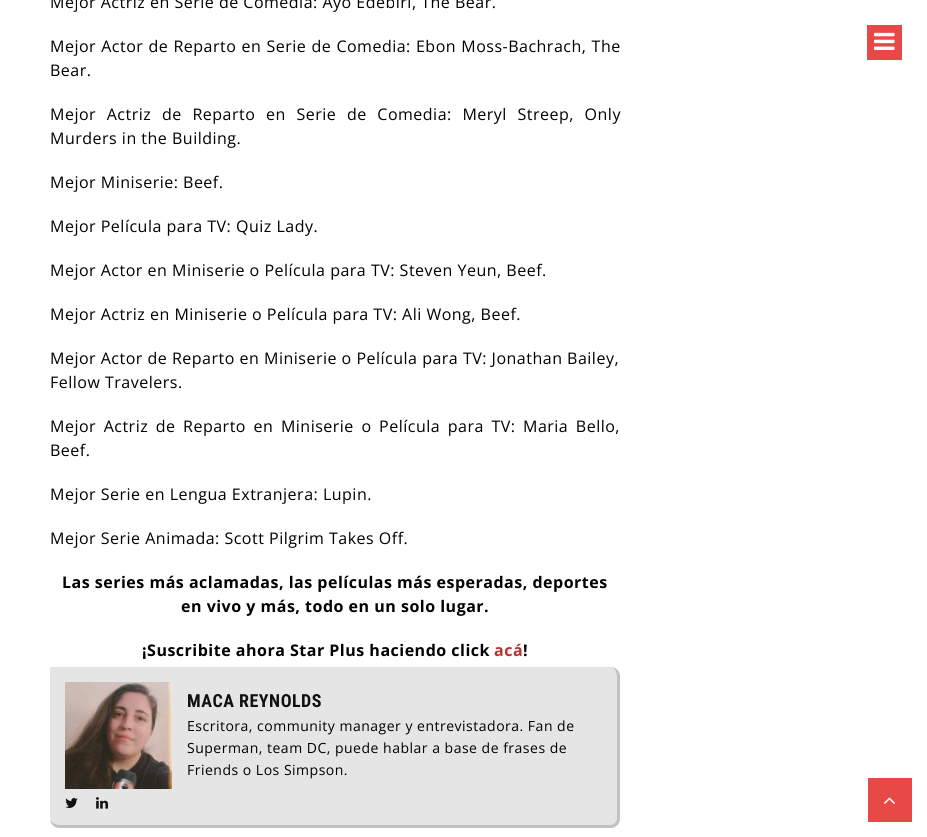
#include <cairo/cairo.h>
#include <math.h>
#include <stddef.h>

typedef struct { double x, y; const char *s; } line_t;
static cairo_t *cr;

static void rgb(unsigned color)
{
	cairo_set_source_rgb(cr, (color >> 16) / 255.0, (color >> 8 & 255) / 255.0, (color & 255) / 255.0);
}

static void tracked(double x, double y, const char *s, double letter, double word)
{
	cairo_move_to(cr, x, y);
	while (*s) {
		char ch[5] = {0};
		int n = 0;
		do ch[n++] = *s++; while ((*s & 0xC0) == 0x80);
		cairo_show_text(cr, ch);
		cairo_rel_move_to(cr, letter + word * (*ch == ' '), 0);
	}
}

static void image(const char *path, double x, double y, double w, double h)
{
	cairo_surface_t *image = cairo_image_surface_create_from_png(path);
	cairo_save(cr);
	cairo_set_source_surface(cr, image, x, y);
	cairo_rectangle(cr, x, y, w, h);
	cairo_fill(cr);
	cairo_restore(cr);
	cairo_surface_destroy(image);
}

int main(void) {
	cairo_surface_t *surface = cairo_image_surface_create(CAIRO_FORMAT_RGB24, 927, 837);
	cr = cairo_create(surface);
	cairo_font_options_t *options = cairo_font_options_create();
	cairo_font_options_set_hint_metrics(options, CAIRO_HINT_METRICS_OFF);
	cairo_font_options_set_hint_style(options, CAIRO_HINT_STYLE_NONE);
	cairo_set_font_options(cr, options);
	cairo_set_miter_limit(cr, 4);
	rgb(0xffffff);
	cairo_paint(cr);
	rgb(0xe5e5e5);
	cairo_new_path(cr);
	cairo_move_to(cr, 50, 667);
	cairo_line_to(cr, 610, 667);
	cairo_curve_to(cr, 615.5, 667, 620, 671.5, 620, 677);
	cairo_line_to(cr, 620, 818);
	cairo_curve_to(cr, 620, 823.5, 615.5, 828, 610, 828);
	cairo_line_to(cr, 60, 828);
	cairo_curve_to(cr, 54.5, 828, 50, 823.5, 50, 818);
	cairo_close_path(cr);
	cairo_fill(cr);
	rgb(0xc1c1c1);
	cairo_set_fill_rule(cr, CAIRO_FILL_RULE_EVEN_ODD);
	cairo_new_path(cr);
	cairo_move_to(cr, 50, 667);
	cairo_line_to(cr, 610, 667);
	cairo_curve_to(cr, 616, 667, 620, 671, 620, 677);
	cairo_line_to(cr, 620, 818);
	cairo_curve_to(cr, 620, 824, 616, 828, 610, 828);
	cairo_line_to(cr, 60, 828);
	cairo_curve_to(cr, 54, 828, 50, 824, 50, 818);
	cairo_close_path(cr);
	cairo_move_to(cr, 50, 667);
	cairo_line_to(cr, 610, 667);
	cairo_curve_to(cr, 614, 667, 617, 671, 617, 677);
	cairo_line_to(cr, 617, 818);
	cairo_curve_to(cr, 617, 822, 614, 825, 610, 825);
	cairo_line_to(cr, 60, 825);
	cairo_curve_to(cr, 54, 825, 50, 822, 50, 818);
	cairo_close_path(cr);
	cairo_fill(cr);
	image("img/1.png", 65, 682, 107, 107);
	image("img/2.png", 65, 798, 13, 10);
	image("img/3.png", 96, 797, 12, 12);
	rgb(0xe64946);
	cairo_rectangle(cr, 867, 25, 35, 35);
	cairo_fill(cr);
	image("img/4.png", 874, 32, 21, 18);
	cairo_rectangle(cr, 868, 778, 44, 44);
	cairo_fill(cr);
	image("img/5.png", 883, 797, 12, 7);
	cairo_select_font_face(cr, "Open Sans", CAIRO_FONT_SLANT_NORMAL, CAIRO_FONT_WEIGHT_NORMAL);
	cairo_set_font_size(cr, 16);
	rgb(0x000000);
	tracked(50, 8, "Mejor Actriz en Serie de Comedia: Ayo Edebiri, The Bear.", 0.5, 0);
	tracked(50, 52, "Mejor Actor de Reparto en Serie de Comedia: Ebon Moss-Bachrach, The", 0.5, 0.5);
	tracked(50, 76, "Bear.", 0.5, 0);
	tracked(50, 120, "Mejor Actriz de Reparto en Serie de Comedia: Meryl Streep, Only", 0.5, 6);
	{
		static const line_t items[] = {
			{50, 144, "Murders in the Building."},
			{50, 188, "Mejor Miniserie: Beef."},
			{50, 232, "Mejor Película para TV: Quiz Lady."},
			{50, 276, "Mejor Actor en Miniserie o Película para TV: Steven Yeun, Beef."},
			{50, 320, "Mejor Actriz en Miniserie o Película para TV: Ali Wong, Beef."},
			{50, 364, "Mejor Actor de Reparto en Miniserie o Película para TV: Jonathan Bailey,"},
			{50, 388, "Fellow Travelers."},
		};
		for (size_t i = 0; i < sizeof items / sizeof *items; i++) {
			tracked(items[i].x, items[i].y, items[i].s, 0.5, 0);
		}
	}
	tracked(50, 432, "Mejor Actriz de Reparto en Miniserie o Película para TV: Maria Bello,", 0.5, 2.9);
	{
		static const line_t items[] = {
			{50, 456, "Beef."},
			{50, 500, "Mejor Serie en Lengua Extranjera: Lupin."},
			{50, 544, "Mejor Serie Animada: Scott Pilgrim Takes Off."},
		};
		for (size_t i = 0; i < sizeof items / sizeof *items; i++) {
			tracked(items[i].x, items[i].y, items[i].s, 0.5, 0);
		}
	}
	cairo_select_font_face(cr, "Open Sans", CAIRO_FONT_SLANT_NORMAL, CAIRO_FONT_WEIGHT_BOLD);
	{
		static const line_t items[] = {
			{62, 588, "Las series más aclamadas, las películas más esperadas, deportes"},
			{181, 612, "en vivo y más, todo en un solo lugar."},
			{142, 656, "¡Suscribite ahora Star Plus haciendo click"},
		};
		for (size_t i = 0; i < sizeof items / sizeof *items; i++) {
			tracked(items[i].x, items[i].y, items[i].s, 0.5, 0);
		}
	}
	rgb(0xb33432);
	tracked(494, 656, "acá", 0.5, 0);
	rgb(0x000000);
	tracked(523, 656, "!", 0.5, 0);
	cairo_select_font_face(cr, "Roboto Condensed", CAIRO_FONT_SLANT_NORMAL, CAIRO_FONT_WEIGHT_BOLD);
	cairo_set_font_size(cr, 18);
	rgb(0x111111);
	tracked(187, 707, "MACA REYNOLDS", 0.5, 0);
	cairo_select_font_face(cr, "Open Sans", CAIRO_FONT_SLANT_NORMAL, CAIRO_FONT_WEIGHT_NORMAL);
	cairo_set_font_size(cr, 14);
	rgb(0x000000);
	{
		static const line_t items[] = {
			{187, 731, "Escritora, community manager y entrevistadora. Fan de"},
			{187, 753, "Superman, team DC, puede hablar a base de frases de"},
			{187, 775, "Friends o Los Simpson."},
		};
		for (size_t i = 0; i < sizeof items / sizeof *items; i++) {
			tracked(items[i].x, items[i].y, items[i].s, 0.5, 0);
		}
	}
	cairo_surface_write_to_png(surface, "page.png");
	cairo_font_options_destroy(options);
	cairo_destroy(cr);
	cairo_surface_destroy(surface);
	return 0;
}
